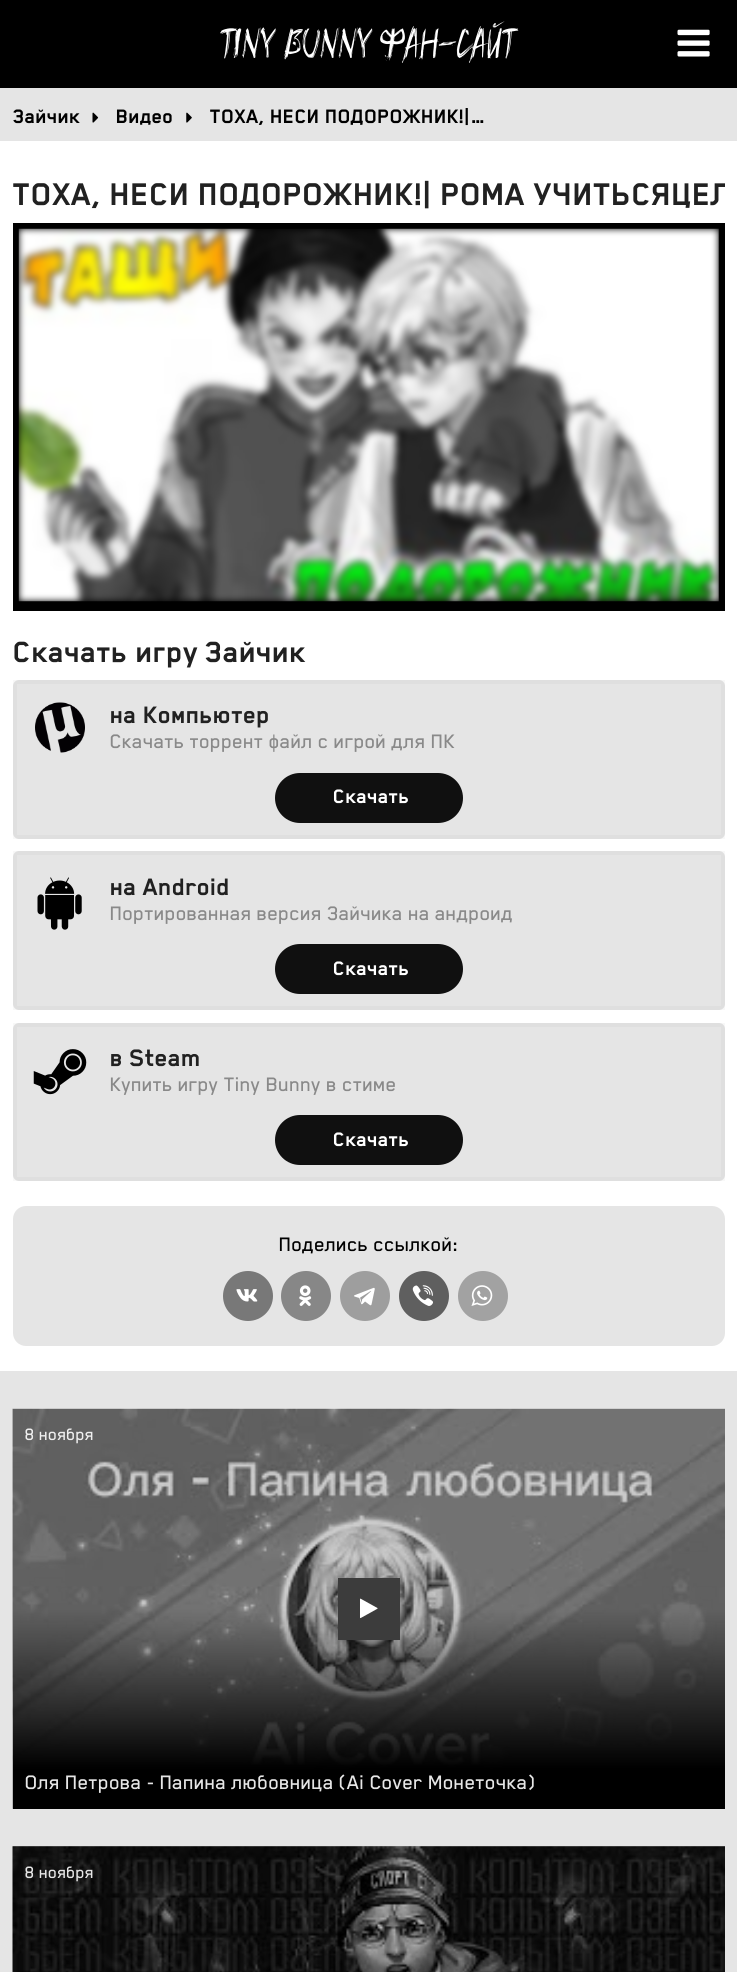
#include <cairo/cairo.h>
#include <math.h>
#include <stddef.h>

typedef struct { double x, y; const char *s; } line_t;
typedef struct { double x, y, w, h; unsigned color; } box_t;
static cairo_t *cr;

static void rgb(unsigned color)
{
	cairo_set_source_rgb(cr, (color >> 16) / 255.0, (color >> 8 & 255) / 255.0, (color & 255) / 255.0);
}

static void rrect(double x, double y, double w, double h, double r)
{
	cairo_new_sub_path(cr);
	cairo_arc(cr, x + w - r, y + h - r, r, 0, M_PI / 2);
	cairo_arc(cr, x + r, y + h - r, r, M_PI / 2, M_PI);
	cairo_arc(cr, x + r, y + r, r, M_PI, 1.5 * M_PI);
	cairo_arc(cr, x + w - r, y + r, r, 1.5 * M_PI, 2 * M_PI);
	cairo_close_path(cr);
}

static void image(const char *path, double x, double y, double w, double h)
{
	cairo_surface_t *image = cairo_image_surface_create_from_png(path);
	cairo_save(cr);
	cairo_set_source_surface(cr, image, x, y);
	cairo_rectangle(cr, x, y, w, h);
	cairo_fill(cr);
	cairo_restore(cr);
	cairo_surface_destroy(image);
}

int main(void) {
	cairo_surface_t *surface = cairo_image_surface_create(CAIRO_FORMAT_RGB24, 737, 1972);
	cr = cairo_create(surface);
	cairo_font_options_t *options = cairo_font_options_create();
	cairo_font_options_set_hint_metrics(options, CAIRO_HINT_METRICS_OFF);
	cairo_font_options_set_hint_style(options, CAIRO_HINT_STYLE_NONE);
	cairo_set_font_options(cr, options);
	cairo_set_miter_limit(cr, 4);
	cairo_pattern_t *gradient;
	rgb(0xffffff);
	cairo_paint(cr);
	rgb(0x000000);
	cairo_rectangle(cr, 0, 0, 737, 88);
	cairo_fill(cr);
	image("img/1.png", 677, 29, 33, 28);
	rgb(0xe5e5e5);
	cairo_rectangle(cr, 0, 88, 737, 53);
	cairo_fill(cr);
	image("img/2.png", 92, 112, 7, 11);
	image("img/3.png", 186, 112, 6, 11);
	{
		static const box_t items[] = {
			{19, 229, 700, 372, 0x000000},
			{13, 223, 712, 6, 0x000000},
			{719, 223, 6, 378, 0x000000},
			{19, 601, 706, 10, 0x000000},
			{13, 223, 6, 388, 0x000000},
		};
		for (size_t i = 0; i < sizeof items / sizeof *items; i++) {
			rgb(items[i].color);
			cairo_rectangle(cr, items[i].x, items[i].y, items[i].w, items[i].h);
			cairo_fill(cr);
		}
	}
	image("img/4.png", 18, 228, 701, 374);
	rgb(0xe5e5e5);
	rrect(13, 680, 712, 159, 6);
	cairo_fill(cr);
	cairo_rectangle(cr, 15, 682, 708, 155);
	cairo_set_source_rgba(cr, 0, 0, 0, 0.03);
	cairo_set_line_width(cr, 4);
	cairo_stroke(cr);
	image("img/5.png", 35, 702, 50, 51);
	rgb(0x101010);
	rrect(275, 773, 188, 50, 25);
	cairo_fill(cr);
	rgb(0xe5e5e5);
	rrect(13, 851, 712, 159, 6);
	cairo_fill(cr);
	cairo_rectangle(cr, 15, 853, 708, 155);
	cairo_set_source_rgba(cr, 0, 0, 0, 0.03);
	cairo_stroke(cr);
	image("img/6.png", 37, 877, 45, 53);
	rgb(0x101010);
	rrect(275, 944, 188, 50, 25);
	cairo_fill(cr);
	rgb(0xe5e5e5);
	rrect(13, 1023, 712, 158, 6);
	cairo_fill(cr);
	cairo_rectangle(cr, 15, 1025, 708, 154);
	cairo_set_source_rgba(cr, 0, 0, 0, 0.03);
	cairo_stroke(cr);
	image("img/7.png", 33, 1049, 54, 46);
	rgb(0x101010);
	rrect(275, 1115, 188, 50, 25);
	cairo_fill(cr);
	rgb(0xe5e5e5);
	rrect(13, 1206, 712, 140, 13);
	cairo_fill(cr);
	rgb(0x787878);
	cairo_arc(cr, 248, 1296, 25, 0, 2 * M_PI);
	cairo_fill(cr);
	image("img/8.png", 236, 1289, 22, 13);
	rgb(0x878787);
	cairo_arc(cr, 306, 1296, 25, 0, 2 * M_PI);
	cairo_fill(cr);
	image("img/9.png", 299, 1285, 13, 21);
	rgb(0x9e9e9e);
	cairo_arc(cr, 365, 1296, 25, 0, 2 * M_PI);
	cairo_fill(cr);
	image("img/10.png", 354, 1287, 21, 19);
	rgb(0x5f5f5f);
	cairo_arc(cr, 424, 1296, 25, 0, 2 * M_PI);
	cairo_fill(cr);
	image("img/11.png", 412, 1285, 21, 21);
	rgb(0xa2a2a2);
	cairo_arc(cr, 483, 1296, 25, 0, 2 * M_PI);
	cairo_fill(cr);
	image("img/12.png", 471, 1285, 22, 21);
	rgb(0xe5e5e5);
	cairo_rectangle(cr, 0, 1371, 737, 601);
	cairo_fill(cr);
	image("img/13.png", 12, 1408, 713, 401);
	gradient = cairo_pattern_create_linear(369, 1409, 369, 1809);
	cairo_pattern_add_color_stop_rgba(gradient, 0.5, 0, 0, 0, 0.2);
	cairo_pattern_add_color_stop_rgba(gradient, 0.9, 0, 0, 0, 1);
	cairo_set_source(cr, gradient);
	cairo_pattern_destroy(gradient);
	cairo_rectangle(cr, 13, 1409, 712, 400);
	cairo_fill(cr);
	rgb(0x3c3c3c);
	cairo_rectangle(cr, 338, 1578, 62, 62);
	cairo_fill(cr);
	image("img/14.png", 360, 1598, 18, 21);
	image("img/15.png", 12, 1846, 713, 126);
	gradient = cairo_pattern_create_linear(369, 1846, 369, 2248);
	cairo_pattern_add_color_stop_rgba(gradient, 0.5, 0, 0, 0, 0.2);
	cairo_pattern_add_color_stop_rgba(gradient, 0.9, 0, 0, 0, 1);
	cairo_set_source(cr, gradient);
	cairo_pattern_destroy(gradient);
	cairo_rectangle(cr, 13, 1846, 712, 126);
	cairo_fill(cr);
	cairo_select_font_face(cr, "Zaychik", CAIRO_FONT_SLANT_NORMAL, CAIRO_FONT_WEIGHT_NORMAL);
	cairo_set_font_size(cr, 42.5);
	rgb(0xffffff);
	cairo_move_to(cr, 221, 58);
	cairo_show_text(cr, "Tiny Bunny Фан-сайт");
	cairo_select_font_face(cr, "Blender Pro", CAIRO_FONT_SLANT_NORMAL, CAIRO_FONT_WEIGHT_BOLD);
	cairo_set_font_size(cr, 22.5);
	rgb(0x000000);
	{
		static const line_t items[] = {
			{13, 123, "Зайчик"},
			{116, 123, "Видео"},
			{210, 123, "ТОХА, НЕСИ ПОДОРОЖНИК!|…"},
		};
		for (size_t i = 0; i < sizeof items / sizeof *items; i++) {
			cairo_move_to(cr, items[i].x, items[i].y);
			cairo_show_text(cr, items[i].s);
		}
	}
	cairo_save(cr);
	cairo_rectangle(cr, 13, 179, 712, 31);
	cairo_clip(cr);
	cairo_set_font_size(cr, 36.25);
	rgb(0x212121);
	cairo_move_to(cr, 13, 205);
	cairo_show_text(cr, "ТОХА, НЕСИ ПОДОРОЖНИК!| РОМА УЧИТЬСЯЦЕЛ");
	cairo_restore(cr);
	cairo_set_font_size(cr, 33.75);
	rgb(0x212121);
	cairo_move_to(cr, 13, 662);
	cairo_show_text(cr, "Скачать игру Зайчик");
	cairo_set_font_size(cr, 27.5);
	cairo_move_to(cr, 110, 723);
	cairo_show_text(cr, "на Компьютер");
	cairo_select_font_face(cr, "Blender Pro Medium", CAIRO_FONT_SLANT_NORMAL, CAIRO_FONT_WEIGHT_NORMAL);
	cairo_set_font_size(cr, 22.5);
	rgb(0x898989);
	cairo_move_to(cr, 110, 748);
	cairo_show_text(cr, "Скачать торрент файл с игрой для ПК");
	cairo_select_font_face(cr, "Blender Pro", CAIRO_FONT_SLANT_NORMAL, CAIRO_FONT_WEIGHT_BOLD);
	rgb(0xffffff);
	cairo_move_to(cr, 333, 803);
	cairo_show_text(cr, "Скачать");
	cairo_set_font_size(cr, 27.5);
	rgb(0x212121);
	cairo_move_to(cr, 110, 895);
	cairo_show_text(cr, "на Android");
	cairo_select_font_face(cr, "Blender Pro Medium", CAIRO_FONT_SLANT_NORMAL, CAIRO_FONT_WEIGHT_NORMAL);
	cairo_set_font_size(cr, 22.5);
	rgb(0x898989);
	cairo_move_to(cr, 110, 920);
	cairo_show_text(cr, "Портированная версия Зайчика на андроид");
	cairo_select_font_face(cr, "Blender Pro", CAIRO_FONT_SLANT_NORMAL, CAIRO_FONT_WEIGHT_BOLD);
	rgb(0xffffff);
	cairo_move_to(cr, 333, 975);
	cairo_show_text(cr, "Скачать");
	cairo_set_font_size(cr, 27.5);
	rgb(0x212121);
	cairo_move_to(cr, 110, 1066);
	cairo_show_text(cr, "в Steam");
	cairo_select_font_face(cr, "Blender Pro Medium", CAIRO_FONT_SLANT_NORMAL, CAIRO_FONT_WEIGHT_NORMAL);
	cairo_set_font_size(cr, 22.5);
	rgb(0x898989);
	cairo_move_to(cr, 110, 1091);
	cairo_show_text(cr, "Купить игру Tiny Bunny в стиме");
	cairo_select_font_face(cr, "Blender Pro", CAIRO_FONT_SLANT_NORMAL, CAIRO_FONT_WEIGHT_BOLD);
	rgb(0xffffff);
	cairo_move_to(cr, 333, 1146);
	cairo_show_text(cr, "Скачать");
	cairo_select_font_face(cr, "Blender Pro Medium", CAIRO_FONT_SLANT_NORMAL, CAIRO_FONT_WEIGHT_NORMAL);
	rgb(0x000000);
	cairo_move_to(cr, 279, 1251);
	cairo_show_text(cr, "Поделись ссылкой:");
	cairo_set_font_size(cr, 19);
	rgb(0xefefef);
	cairo_move_to(cr, 25, 1440);
	cairo_show_text(cr, "8 ноября");
	cairo_set_font_size(cr, 22.5);
	rgb(0xe6e6e6);
	cairo_move_to(cr, 25, 1789);
	cairo_show_text(cr, "Оля Петрова - Папина любовница (Ai Cover Монеточка)");
	cairo_set_font_size(cr, 19);
	cairo_move_to(cr, 25, 1878);
	cairo_show_text(cr, "8 ноября");
	cairo_surface_write_to_png(surface, "page.png");
	cairo_font_options_destroy(options);
	cairo_destroy(cr);
	cairo_surface_destroy(surface);
	return 0;
}
